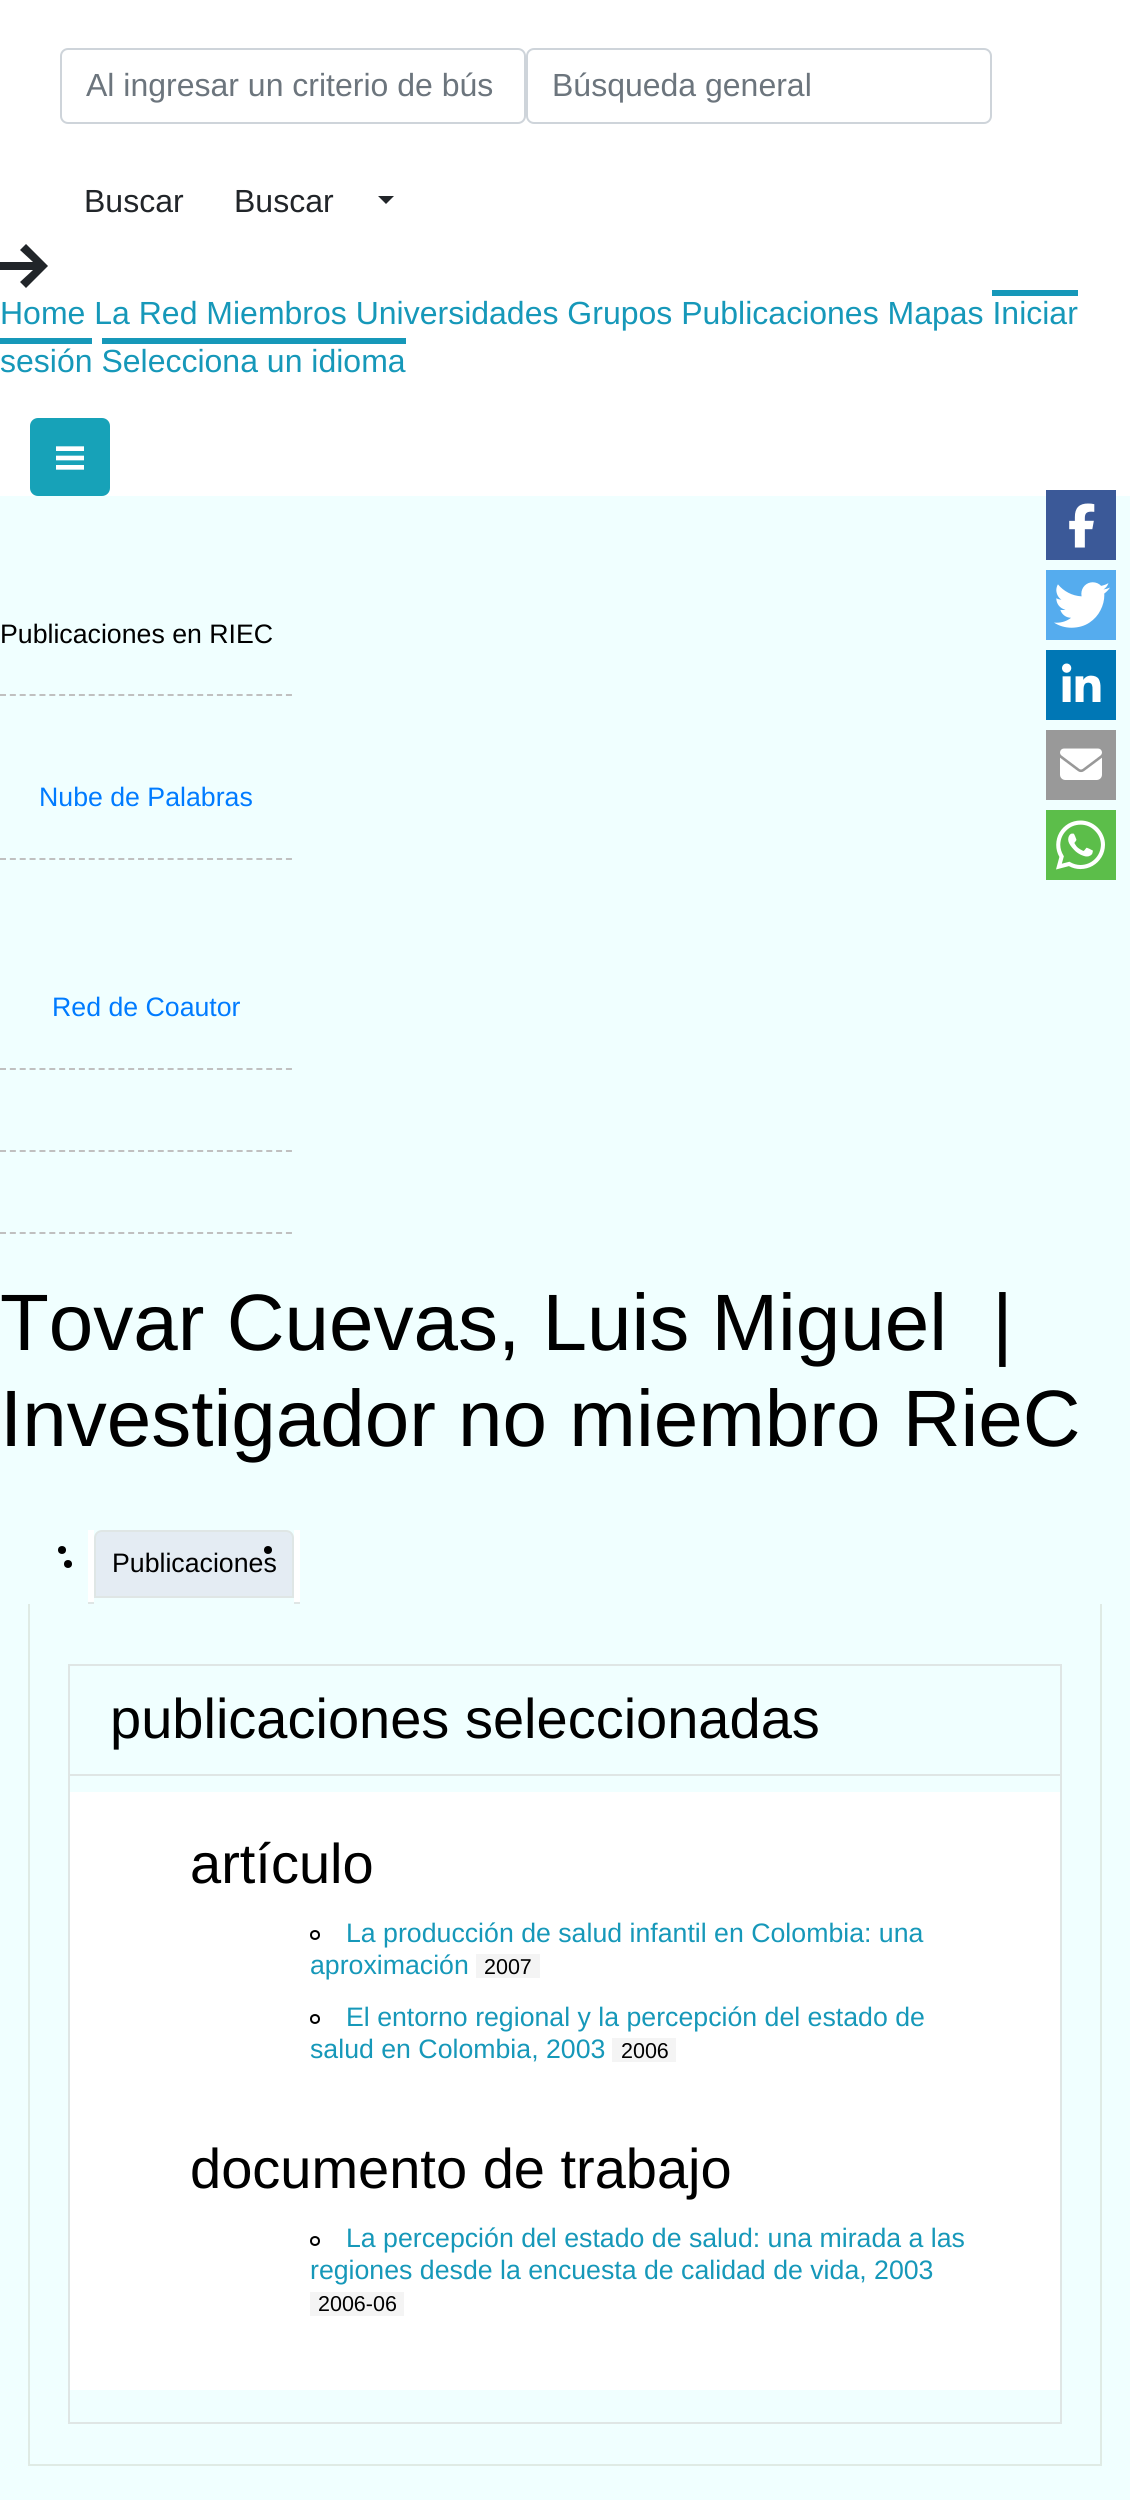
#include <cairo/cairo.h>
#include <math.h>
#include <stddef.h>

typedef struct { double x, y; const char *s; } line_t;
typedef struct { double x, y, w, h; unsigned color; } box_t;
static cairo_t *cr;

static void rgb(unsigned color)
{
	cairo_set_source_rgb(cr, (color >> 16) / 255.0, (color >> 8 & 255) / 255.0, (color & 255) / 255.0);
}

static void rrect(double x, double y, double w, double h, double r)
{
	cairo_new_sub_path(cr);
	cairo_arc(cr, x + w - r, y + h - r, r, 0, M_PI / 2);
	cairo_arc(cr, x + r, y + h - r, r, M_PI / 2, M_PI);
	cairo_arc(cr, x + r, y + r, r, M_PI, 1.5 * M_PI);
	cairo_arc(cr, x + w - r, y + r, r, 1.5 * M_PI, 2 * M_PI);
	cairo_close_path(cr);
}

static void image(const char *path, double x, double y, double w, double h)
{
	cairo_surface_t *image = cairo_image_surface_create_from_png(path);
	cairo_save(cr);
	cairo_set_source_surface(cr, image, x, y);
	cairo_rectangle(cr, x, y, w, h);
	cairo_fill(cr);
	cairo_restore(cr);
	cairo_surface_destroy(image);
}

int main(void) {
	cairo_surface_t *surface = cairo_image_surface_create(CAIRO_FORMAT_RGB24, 1130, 2500);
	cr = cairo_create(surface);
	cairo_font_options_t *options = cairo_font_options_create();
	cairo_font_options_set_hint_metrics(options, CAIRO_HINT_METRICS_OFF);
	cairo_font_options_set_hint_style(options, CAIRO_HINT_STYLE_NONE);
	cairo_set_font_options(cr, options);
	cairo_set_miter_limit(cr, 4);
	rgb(0xffffff);
	cairo_paint(cr);
	rrect(61, 49, 464, 74, 7);
	rgb(0xced4da);
	cairo_stroke(cr);
	rrect(527, 49, 464, 74, 7);
	cairo_stroke(cr);
	rgb(0x212529);
	cairo_new_path(cr);
	cairo_move_to(cr, 378, 196);
	cairo_line_to(cr, 394, 196);
	cairo_line_to(cr, 386, 204);
	cairo_close_path(cr);
	cairo_fill(cr);
	cairo_new_path(cr);
	cairo_move_to(cr, 26, 244);
	cairo_line_to(cr, 20, 250);
	cairo_line_to(cr, 33, 262);
	cairo_line_to(cr, 0, 262);
	cairo_line_to(cr, 0, 270);
	cairo_line_to(cr, 33, 270);
	cairo_line_to(cr, 20, 282);
	cairo_line_to(cr, 26, 288);
	cairo_line_to(cr, 48, 266);
	cairo_close_path(cr);
	cairo_fill(cr);
	{
		static const box_t items[] = {
			{102, 338, 304, 6, 0x1698b9},
			{992, 290, 86, 6, 0x1698b9},
			{0, 338, 92, 6, 0x1698b9},
		};
		for (size_t i = 0; i < sizeof items / sizeof *items; i++) {
			rgb(items[i].color);
			cairo_rectangle(cr, items[i].x, items[i].y, items[i].w, items[i].h);
			cairo_fill(cr);
		}
	}
	rgb(0x17a2b8);
	rrect(31, 419, 78, 76, 7);
	cairo_fill_preserve(cr);
	cairo_stroke(cr);
	image("img/1.png", 56, 446, 28, 24);
	rgb(0xf0ffff);
	cairo_rectangle(cr, 0, 496, 1130, 2004);
	cairo_fill(cr);
	cairo_new_path(cr);
	cairo_move_to(cr, 0, 695);
	cairo_line_to(cr, 292, 695);
	rgb(0xc0c0c0);
	cairo_set_dash(cr, (double[]){6, 3.86}, 2, 0);
	cairo_stroke(cr);
	cairo_new_path(cr);
	cairo_move_to(cr, 0, 859);
	cairo_line_to(cr, 292, 859);
	cairo_stroke(cr);
	cairo_new_path(cr);
	cairo_move_to(cr, 0, 1069);
	cairo_line_to(cr, 292, 1069);
	cairo_stroke(cr);
	cairo_new_path(cr);
	cairo_move_to(cr, 0, 1151);
	cairo_line_to(cr, 292, 1151);
	cairo_stroke(cr);
	cairo_new_path(cr);
	cairo_move_to(cr, 0, 1233);
	cairo_line_to(cr, 292, 1233);
	cairo_stroke(cr);
	rgb(0xffffff);
	cairo_rectangle(cr, 88, 1530, 6, 74);
	cairo_fill(cr);
	rgb(0xdfe6e5);
	cairo_rectangle(cr, 88, 1602, 6, 2);
	cairo_fill(cr);
	rgb(0x000000);
	cairo_arc(cr, 62, 1550, 4, 0, 2 * M_PI);
	cairo_fill(cr);
	rgb(0xe4ecf3);
	cairo_new_path(cr);
	cairo_move_to(cr, 102, 1531);
	cairo_line_to(cr, 286, 1531);
	cairo_curve_to(cr, 290, 1531, 293, 1534, 293, 1538);
	cairo_line_to(cr, 293, 1597);
	cairo_line_to(cr, 95, 1597);
	cairo_line_to(cr, 95, 1538);
	cairo_curve_to(cr, 95, 1534, 98, 1531, 102, 1531);
	cairo_close_path(cr);
	cairo_fill_preserve(cr);
	rgb(0xdfe6e5);
	cairo_set_dash(cr, NULL, 0, 0);
	cairo_stroke(cr);
	rgb(0x000000);
	cairo_arc(cr, 68, 1564, 4, 0, 2 * M_PI);
	cairo_fill(cr);
	rgb(0xffffff);
	cairo_rectangle(cr, 294, 1530, 6, 74);
	cairo_fill(cr);
	rgb(0xdfe6e5);
	cairo_rectangle(cr, 294, 1602, 6, 2);
	cairo_fill(cr);
	rgb(0x000000);
	cairo_arc(cr, 268, 1550, 4, 0, 2 * M_PI);
	cairo_fill(cr);
	{
		static const box_t items[] = {
			{1100, 1604, 2, 862, 0xdfebe5},
			{28, 2464, 1074, 2, 0xdfebe5},
			{28, 1604, 2, 862, 0xdfebe5},
		};
		for (size_t i = 0; i < sizeof items / sizeof *items; i++) {
			rgb(items[i].color);
			cairo_rectangle(cr, items[i].x, items[i].y, items[i].w, items[i].h);
			cairo_fill(cr);
		}
	}
	cairo_rectangle(cr, 69, 1665, 992, 758);
	rgb(0xdfe6e5);
	cairo_stroke(cr);
	cairo_rectangle(cr, 70, 1774, 990, 2);
	cairo_fill(cr);
	rgb(0xffffff);
	cairo_rectangle(cr, 70, 1792, 990, 598);
	cairo_fill(cr);
	cairo_arc(cr, 315, 1935, 4, 0, 2 * M_PI);
	rgb(0x000000);
	cairo_stroke(cr);
	rgb(0xf4f4f4);
	cairo_rectangle(cr, 476, 1954, 64, 24);
	cairo_fill(cr);
	cairo_arc(cr, 315, 2019, 4, 0, 2 * M_PI);
	rgb(0x000000);
	cairo_stroke(cr);
	rgb(0xf4f4f4);
	cairo_rectangle(cr, 612, 2038, 64, 24);
	cairo_fill(cr);
	cairo_arc(cr, 315, 2241, 4, 0, 2 * M_PI);
	rgb(0x000000);
	cairo_stroke(cr);
	rgb(0xf4f4f4);
	cairo_rectangle(cr, 310, 2292, 94, 24);
	cairo_fill(cr);
	rgb(0x3b5998);
	cairo_rectangle(cr, 1046, 490, 70, 70);
	cairo_fill(cr);
	image("img/2.png", 1069, 503, 26, 45);
	rgb(0x55acee);
	cairo_rectangle(cr, 1046, 570, 70, 70);
	cairo_fill(cr);
	image("img/3.png", 1054, 582, 56, 46);
	rgb(0x0077b5);
	cairo_rectangle(cr, 1046, 650, 70, 70);
	cairo_fill(cr);
	image("img/4.png", 1062, 663, 39, 39);
	rgb(0x999999);
	cairo_rectangle(cr, 1046, 730, 70, 70);
	cairo_fill(cr);
	image("img/5.png", 1060, 748, 42, 32);
	rgb(0x5cbe4a);
	cairo_rectangle(cr, 1046, 810, 70, 70);
	cairo_fill(cr);
	image("img/6.png", 1056, 820, 49, 50);
	cairo_select_font_face(cr, "Liberation Sans", CAIRO_FONT_SLANT_NORMAL, CAIRO_FONT_WEIGHT_NORMAL);
	cairo_set_font_size(cr, 32);
	rgb(0x6c757d);
	cairo_move_to(cr, 86, 96);
	cairo_show_text(cr, "Al ingresar un criterio de bús");
	cairo_move_to(cr, 552, 96);
	cairo_show_text(cr, "Búsqueda general");
	rgb(0x212529);
	cairo_move_to(cr, 84, 212);
	cairo_show_text(cr, "Buscar");
	cairo_move_to(cr, 234, 212);
	cairo_show_text(cr, "Buscar");
	rgb(0x1698b9);
	cairo_move_to(cr, 0, 324);
	cairo_show_text(cr, "Home La Red Miembros Universidades Grupos Publicaciones Mapas Iniciar");
	cairo_move_to(cr, 0, 372);
	cairo_show_text(cr, "sesión Selecciona un idioma");
	cairo_set_font_size(cr, 26.7);
	rgb(0x000000);
	cairo_move_to(cr, 0, 643);
	cairo_show_text(cr, "Publicaciones en RIEC");
	rgb(0x007bff);
	cairo_move_to(cr, 39, 806);
	cairo_show_text(cr, "Nube de Palabras");
	cairo_move_to(cr, 52, 1016);
	cairo_show_text(cr, "Red de Coautor");
	cairo_set_font_size(cr, 80);
	rgb(0x000000);
	{
		static const line_t items[] = {
			{0, 1350, "Tovar Cuevas, Luis Miguel"},
			{992, 1350, "|"},
			{0, 1446, "Investigador no miembro RieC"},
		};
		for (size_t i = 0; i < sizeof items / sizeof *items; i++) {
			cairo_move_to(cr, items[i].x, items[i].y);
			cairo_show_text(cr, items[i].s);
		}
	}
	cairo_set_font_size(cr, 26.7);
	cairo_move_to(cr, 112, 1572);
	cairo_show_text(cr, "Publicaciones");
	cairo_set_font_size(cr, 56);
	cairo_move_to(cr, 110, 1738);
	cairo_show_text(cr, "publicaciones seleccionadas");
	cairo_move_to(cr, 190, 1883);
	cairo_show_text(cr, "artículo");
	cairo_set_font_size(cr, 26.7);
	rgb(0x1698b9);
	cairo_move_to(cr, 346, 1942);
	cairo_show_text(cr, "La producción de salud infantil en Colombia: una");
	cairo_move_to(cr, 310, 1974);
	cairo_show_text(cr, "aproximación");
	cairo_set_font_size(cr, 21.5);
	rgb(0x000000);
	cairo_move_to(cr, 484, 1974);
	cairo_show_text(cr, "2007");
	cairo_set_font_size(cr, 26.7);
	rgb(0x1698b9);
	cairo_move_to(cr, 346, 2026);
	cairo_show_text(cr, "El entorno regional y la percepción del estado de");
	cairo_move_to(cr, 310, 2058);
	cairo_show_text(cr, "salud en Colombia, 2003");
	cairo_set_font_size(cr, 21.5);
	rgb(0x000000);
	cairo_move_to(cr, 621, 2058);
	cairo_show_text(cr, "2006");
	cairo_set_font_size(cr, 56);
	cairo_move_to(cr, 190, 2188);
	cairo_show_text(cr, "documento de trabajo");
	cairo_set_font_size(cr, 26.7);
	rgb(0x1698b9);
	cairo_move_to(cr, 346, 2247);
	cairo_show_text(cr, "La percepción del estado de salud: una mirada a las");
	cairo_move_to(cr, 310, 2279);
	cairo_show_text(cr, "regiones desde la encuesta de calidad de vida, 2003");
	cairo_set_font_size(cr, 21.5);
	rgb(0x000000);
	cairo_move_to(cr, 318, 2311);
	cairo_show_text(cr, "2006-06");
	cairo_surface_write_to_png(surface, "page.png");
	cairo_font_options_destroy(options);
	cairo_destroy(cr);
	cairo_surface_destroy(surface);
	return 0;
}
